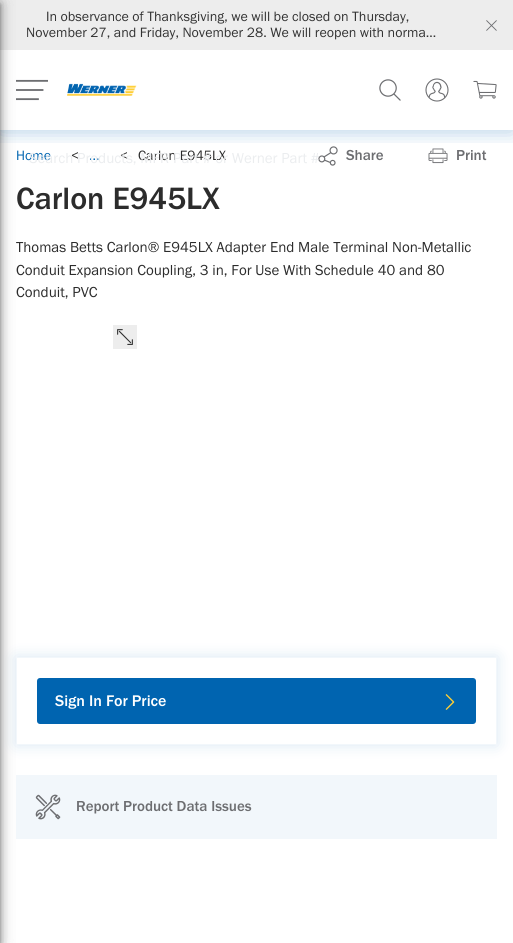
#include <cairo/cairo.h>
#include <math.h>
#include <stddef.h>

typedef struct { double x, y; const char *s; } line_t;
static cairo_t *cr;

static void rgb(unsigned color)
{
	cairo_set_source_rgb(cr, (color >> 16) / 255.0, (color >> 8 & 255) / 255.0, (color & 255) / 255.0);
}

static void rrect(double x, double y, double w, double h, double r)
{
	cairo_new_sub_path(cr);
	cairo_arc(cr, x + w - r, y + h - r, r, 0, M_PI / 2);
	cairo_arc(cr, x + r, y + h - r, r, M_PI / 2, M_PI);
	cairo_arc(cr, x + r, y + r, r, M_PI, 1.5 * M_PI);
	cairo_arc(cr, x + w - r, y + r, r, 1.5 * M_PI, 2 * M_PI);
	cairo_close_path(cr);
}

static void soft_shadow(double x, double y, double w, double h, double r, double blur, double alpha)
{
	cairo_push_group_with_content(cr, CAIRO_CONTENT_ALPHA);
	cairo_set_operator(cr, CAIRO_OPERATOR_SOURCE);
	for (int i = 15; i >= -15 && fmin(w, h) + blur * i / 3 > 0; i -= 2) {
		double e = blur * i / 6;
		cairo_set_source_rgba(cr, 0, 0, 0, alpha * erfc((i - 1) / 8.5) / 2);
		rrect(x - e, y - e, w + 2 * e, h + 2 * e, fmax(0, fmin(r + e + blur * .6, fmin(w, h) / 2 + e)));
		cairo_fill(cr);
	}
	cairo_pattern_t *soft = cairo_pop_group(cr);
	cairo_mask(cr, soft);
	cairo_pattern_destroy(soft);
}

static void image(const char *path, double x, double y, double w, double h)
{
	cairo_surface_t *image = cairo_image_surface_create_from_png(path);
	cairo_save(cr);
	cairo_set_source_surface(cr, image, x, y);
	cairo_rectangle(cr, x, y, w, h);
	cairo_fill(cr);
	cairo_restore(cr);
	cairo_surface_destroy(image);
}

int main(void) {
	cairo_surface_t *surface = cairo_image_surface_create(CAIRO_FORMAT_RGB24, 513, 943);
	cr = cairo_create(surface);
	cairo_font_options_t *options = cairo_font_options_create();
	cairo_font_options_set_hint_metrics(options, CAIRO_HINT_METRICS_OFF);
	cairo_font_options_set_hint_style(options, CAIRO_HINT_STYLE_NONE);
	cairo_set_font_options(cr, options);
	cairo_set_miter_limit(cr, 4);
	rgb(0xffffff);
	cairo_paint(cr);
	image("img/7.png", 318, 146, 20, 20);
	image("img/8.png", 428, 148, 20, 16);
	cairo_save(cr);
	cairo_rectangle(cr, 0, 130, 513, 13);
	cairo_clip(cr);
	rgb(0x0064b0);
	soft_shadow(0, 2, 513, 130, 0, 10, 0.15);
	soft_shadow(0, 2, 513, 130, 0, 10, 0.15);
	cairo_restore(cr);
	rgb(0xededed);
	cairo_rectangle(cr, 0, 0, 513, 50);
	cairo_fill(cr);
	image("img/1.png", 486, 20, 11, 11);
	image("img/2.png", 16, 79, 32, 22);
	cairo_save(cr);
	cairo_set_fill_rule(cr, CAIRO_FILL_RULE_EVEN_ODD);
	cairo_new_path(cr);
	cairo_move_to(cr, 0, 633);
	cairo_line_to(cr, 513, 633);
	cairo_line_to(cr, 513, 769);
	cairo_line_to(cr, 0, 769);
	cairo_close_path(cr);
	cairo_move_to(cr, 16, 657);
	cairo_line_to(cr, 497, 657);
	cairo_line_to(cr, 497, 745);
	cairo_line_to(cr, 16, 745);
	cairo_close_path(cr);
	cairo_clip(cr);
	rgb(0x0064b0);
	soft_shadow(16, 657, 481, 88, 0, 7.5, 0.15);
	cairo_restore(cr);
	cairo_rectangle(cr, 16.5, 657.5, 480, 87);
	rgb(0xf2f7fb);
	cairo_set_line_width(cr, 1);
	cairo_stroke(cr);
	cairo_rectangle(cr, 16, 775, 481, 64);
	cairo_fill(cr);
	rgb(0x000000);
	soft_shadow(-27, 1, 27, 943, 0, 9, 0.12);
	soft_shadow(-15, 6, 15, 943, 0, 5, 0.14);
	soft_shadow(-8, 4, 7, 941, 0, 2.5, 0.2);
	soft_shadow(-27, 1, 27, 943, 0, 9, 0.12);
	soft_shadow(-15, 6, 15, 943, 0, 5, 0.14);
	soft_shadow(-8, 4, 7, 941, 0, 2.5, 0.2);
	image("img/3.png", 67, 83, 70, 13);
	image("img/4.png", 379, 79, 22, 22);
	image("img/5.png", 425, 78, 24, 24);
	image("img/6.png", 473, 80, 24, 19);
	rgb(0xededed);
	cairo_rectangle(cr, 113, 325, 24, 24);
	cairo_fill(cr);
	image("img/9.png", 117, 329, 16, 16);
	rgb(0x0064b0);
	rrect(38, 679, 437, 44, 2);
	cairo_fill_preserve(cr);
	cairo_set_line_width(cr, 2);
	cairo_stroke(cr);
	image("img/10.png", 445, 694, 10, 16);
	image("img/11.png", 35, 794, 26, 26);
	cairo_select_font_face(cr, "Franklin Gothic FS", CAIRO_FONT_SLANT_NORMAL, CAIRO_FONT_WEIGHT_NORMAL);
	cairo_set_font_size(cr, 14);
	rgb(0x333333);
	cairo_move_to(cr, 46, 21);
	cairo_show_text(cr, "In observance of Thanksgiving, we will be closed on Thursday,");
	cairo_move_to(cr, 26, 37);
	cairo_show_text(cr, "November 27, and Friday, November 28. We will reopen with norma…");
	rgb(0x0064b0);
	cairo_move_to(cr, 16, 160);
	cairo_show_text(cr, "Home");
	rgb(0x2c2c2c);
	cairo_move_to(cr, 71, 160);
	cairo_show_text(cr, "<");
	rgb(0x0064b0);
	cairo_move_to(cr, 89, 160);
	cairo_show_text(cr, "...");
	rgb(0x2c2c2c);
	cairo_move_to(cr, 120, 160);
	cairo_show_text(cr, "<");
	cairo_move_to(cr, 138, 160);
	cairo_show_text(cr, "Carlon E945LX");
	cairo_set_font_size(cr, 15);
	rgb(0xebedef);
	cairo_move_to(cr, 29, 163);
	cairo_show_text(cr, "Search Products, MFR Part # or Werner Part #");
	cairo_select_font_face(cr, "Franklin Gothic FS Medium", CAIRO_FONT_SLANT_NORMAL, CAIRO_FONT_WEIGHT_NORMAL);
	rgb(0x6d6e71);
	cairo_move_to(cr, 346, 160);
	cairo_show_text(cr, "Share");
	cairo_move_to(cr, 456, 160);
	cairo_show_text(cr, "Print");
	cairo_set_font_size(cr, 32);
	rgb(0x2c2c2c);
	cairo_move_to(cr, 16, 209);
	cairo_show_text(cr, "Carlon E945LX");
	cairo_select_font_face(cr, "Franklin Gothic FS", CAIRO_FONT_SLANT_NORMAL, CAIRO_FONT_WEIGHT_NORMAL);
	cairo_set_font_size(cr, 15);
	{
		static const line_t items[] = {
			{16, 252, "Thomas Betts Carlon® E945LX Adapter End Male Terminal Non-Metallic"},
			{16, 275, "Conduit Expansion Coupling, 3 in, For Use With Schedule 40 and 80"},
			{16, 297, "Conduit, PVC"},
		};
		for (size_t i = 0; i < sizeof items / sizeof *items; i++) {
			cairo_move_to(cr, items[i].x, items[i].y);
			cairo_show_text(cr, items[i].s);
		}
	}
	cairo_select_font_face(cr, "Franklin Gothic FS Medium", CAIRO_FONT_SLANT_NORMAL, CAIRO_FONT_WEIGHT_NORMAL);
	cairo_set_font_size(cr, 16);
	rgb(0xffffff);
	cairo_move_to(cr, 55, 706);
	cairo_show_text(cr, "Sign In For Price");
	cairo_set_font_size(cr, 15);
	rgb(0x6d6e71);
	cairo_move_to(cr, 76, 811);
	cairo_show_text(cr, "Report Product Data Issues");
	cairo_surface_write_to_png(surface, "page.png");
	cairo_font_options_destroy(options);
	cairo_destroy(cr);
	cairo_surface_destroy(surface);
	return 0;
}
